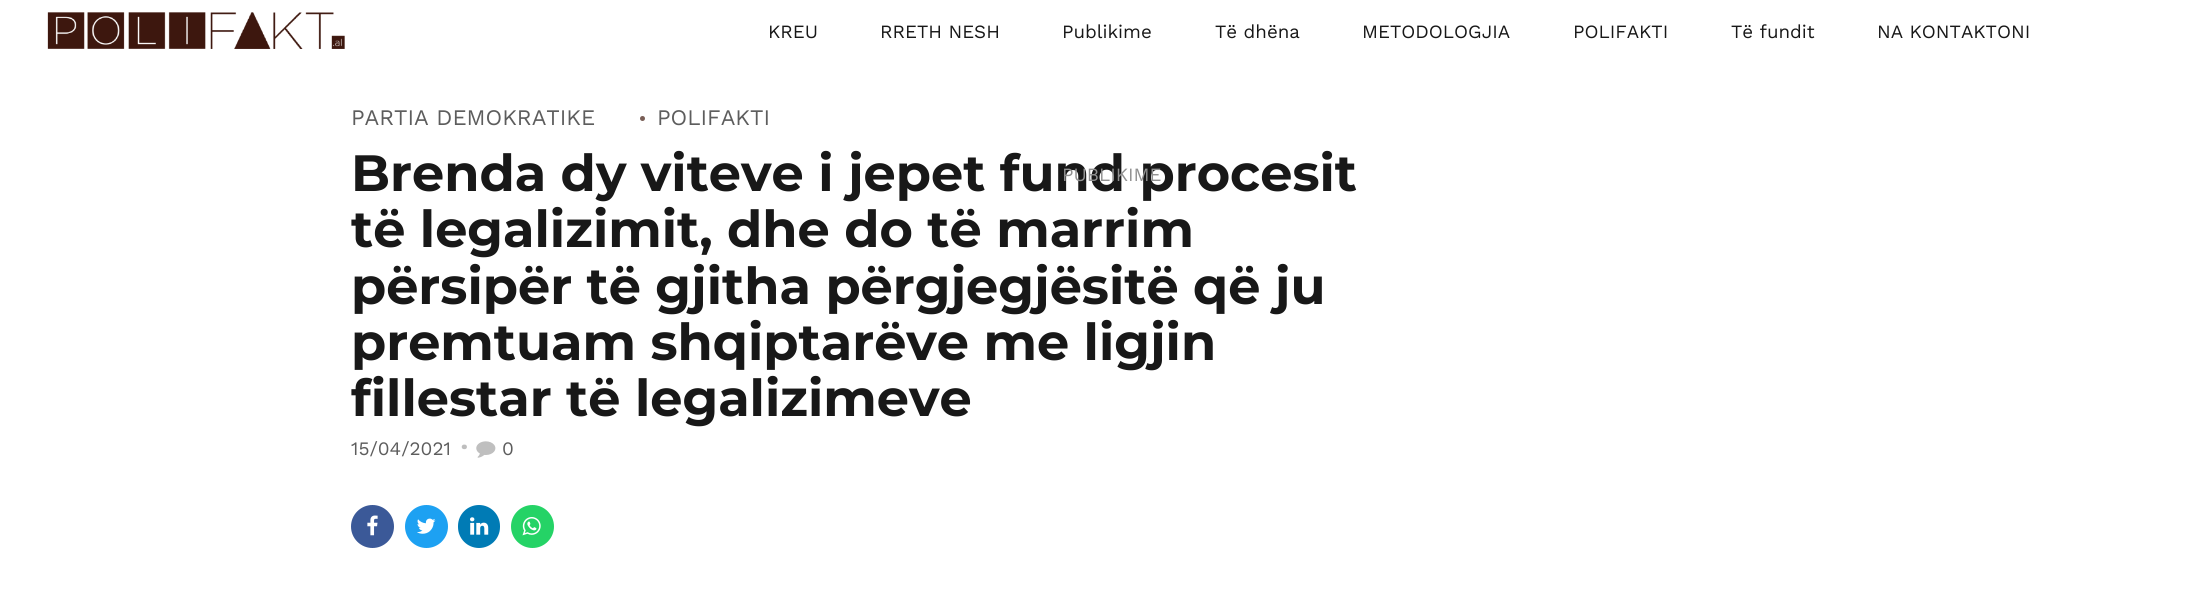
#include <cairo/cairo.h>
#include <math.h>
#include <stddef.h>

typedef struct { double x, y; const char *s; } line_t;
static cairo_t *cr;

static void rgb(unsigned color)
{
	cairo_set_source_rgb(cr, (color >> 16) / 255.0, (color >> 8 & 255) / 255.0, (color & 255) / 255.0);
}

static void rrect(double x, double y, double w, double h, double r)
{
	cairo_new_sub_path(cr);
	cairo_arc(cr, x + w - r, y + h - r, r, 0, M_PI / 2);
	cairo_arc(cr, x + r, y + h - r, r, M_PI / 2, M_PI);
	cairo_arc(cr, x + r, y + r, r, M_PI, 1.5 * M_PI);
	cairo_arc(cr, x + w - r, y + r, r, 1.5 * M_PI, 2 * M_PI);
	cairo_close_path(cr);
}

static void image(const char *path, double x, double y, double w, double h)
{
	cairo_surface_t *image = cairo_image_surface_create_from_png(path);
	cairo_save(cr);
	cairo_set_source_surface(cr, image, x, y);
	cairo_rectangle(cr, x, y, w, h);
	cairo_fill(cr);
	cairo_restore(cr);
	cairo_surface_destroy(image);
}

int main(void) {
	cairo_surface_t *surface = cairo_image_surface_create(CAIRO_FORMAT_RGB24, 2202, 616);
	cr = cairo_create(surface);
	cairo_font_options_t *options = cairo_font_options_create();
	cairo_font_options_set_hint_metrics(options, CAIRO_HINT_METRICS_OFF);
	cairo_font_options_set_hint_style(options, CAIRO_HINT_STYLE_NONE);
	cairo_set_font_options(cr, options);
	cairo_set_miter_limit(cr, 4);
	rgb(0xffffff);
	cairo_paint(cr);
	image("img/1.png", 47, 12, 298, 37);
	rgb(0x795e56);
	cairo_arc(cr, 642.5, 118.5, 2.5, 0, 2 * M_PI);
	cairo_fill(cr);
	image("img/2.png", 476, 441, 20, 17);
	rgb(0x3b5998);
	cairo_arc(cr, 372.5, 526.5, 21.5, 0, 2 * M_PI);
	cairo_fill(cr);
	image("img/3.png", 367, 515, 11, 21);
	rgb(0x1da1f2);
	cairo_arc(cr, 426.5, 526.5, 21.5, 0, 2 * M_PI);
	cairo_fill(cr);
	image("img/4.png", 417, 518, 19, 16);
	rgb(0x007bb5);
	rrect(458, 505, 42, 43, 21);
	cairo_fill(cr);
	image("img/5.png", 470, 517, 19, 18);
	rgb(0x25d366);
	cairo_arc(cr, 532.5, 526.5, 21.5, 0, 2 * M_PI);
	cairo_fill(cr);
	image("img/6.png", 522, 517, 19, 19);
	cairo_select_font_face(cr, "Work Sans", CAIRO_FONT_SLANT_NORMAL, CAIRO_FONT_WEIGHT_NORMAL);
	cairo_set_font_size(cr, 18.75);
	rgb(0x181818);
	{
		static const line_t items[] = {
			{768, 38, "KREU"},
			{880, 38, "RRETH NESH"},
			{1062, 38, "Publikime"},
			{1215, 38, "Të dhëna"},
			{1362, 38, "METODOLOGJIA"},
			{1573, 38, "POLIFAKTI"},
			{1731, 38, "Të fundit"},
			{1877, 38, "NA KONTAKTONI"},
		};
		for (size_t i = 0; i < sizeof items / sizeof *items; i++) {
			cairo_move_to(cr, items[i].x, items[i].y);
			cairo_show_text(cr, items[i].s);
		}
	}
	cairo_set_font_size(cr, 22.25);
	rgb(0x5d5d5d);
	cairo_move_to(cr, 351, 125);
	cairo_show_text(cr, "PARTIA DEMOKRATIKE");
	cairo_move_to(cr, 657, 125);
	cairo_show_text(cr, "POLIFAKTI");
	cairo_select_font_face(cr, "Montserrat", CAIRO_FONT_SLANT_NORMAL, CAIRO_FONT_WEIGHT_BOLD);
	cairo_set_font_size(cr, 51);
	rgb(0x181818);
	cairo_move_to(cr, 351, 191);
	cairo_show_text(cr, "Brenda dy viteve i jepet fund procesit");
	cairo_select_font_face(cr, "Work Sans", CAIRO_FONT_SLANT_NORMAL, CAIRO_FONT_WEIGHT_NORMAL);
	cairo_set_font_size(cr, 18.75);
	rgb(0x919191);
	cairo_move_to(cr, 1062, 181);
	cairo_show_text(cr, "PUBLIKIME");
	cairo_select_font_face(cr, "Montserrat", CAIRO_FONT_SLANT_NORMAL, CAIRO_FONT_WEIGHT_BOLD);
	cairo_set_font_size(cr, 51);
	rgb(0x181818);
	{
		static const line_t items[] = {
			{351, 247, "të legalizimit, dhe do të marrim"},
			{351, 304, "përsipër të gjitha përgjegjësitë që ju"},
			{351, 360, "premtuam shqiptarëve me ligjin"},
			{351, 416, "fillestar të legalizimeve"},
		};
		for (size_t i = 0; i < sizeof items / sizeof *items; i++) {
			cairo_move_to(cr, items[i].x, items[i].y);
			cairo_show_text(cr, items[i].s);
		}
	}
	cairo_select_font_face(cr, "Work Sans", CAIRO_FONT_SLANT_NORMAL, CAIRO_FONT_WEIGHT_NORMAL);
	cairo_set_font_size(cr, 19);
	rgb(0x5d5d5d);
	cairo_move_to(cr, 351, 455);
	cairo_show_text(cr, "15/04/2021");
	cairo_select_font_face(cr, "Work Sans ExtraBold", CAIRO_FONT_SLANT_NORMAL, CAIRO_FONT_WEIGHT_NORMAL);
	cairo_set_font_size(cr, 23);
	rgb(0xbebebe);
	cairo_move_to(cr, 461, 455);
	cairo_show_text(cr, "·");
	cairo_select_font_face(cr, "Work Sans", CAIRO_FONT_SLANT_NORMAL, CAIRO_FONT_WEIGHT_NORMAL);
	cairo_set_font_size(cr, 19);
	rgb(0x5d5d5d);
	cairo_move_to(cr, 502, 455);
	cairo_show_text(cr, "0");
	cairo_surface_write_to_png(surface, "page.png");
	cairo_font_options_destroy(options);
	cairo_destroy(cr);
	cairo_surface_destroy(surface);
	return 0;
}
